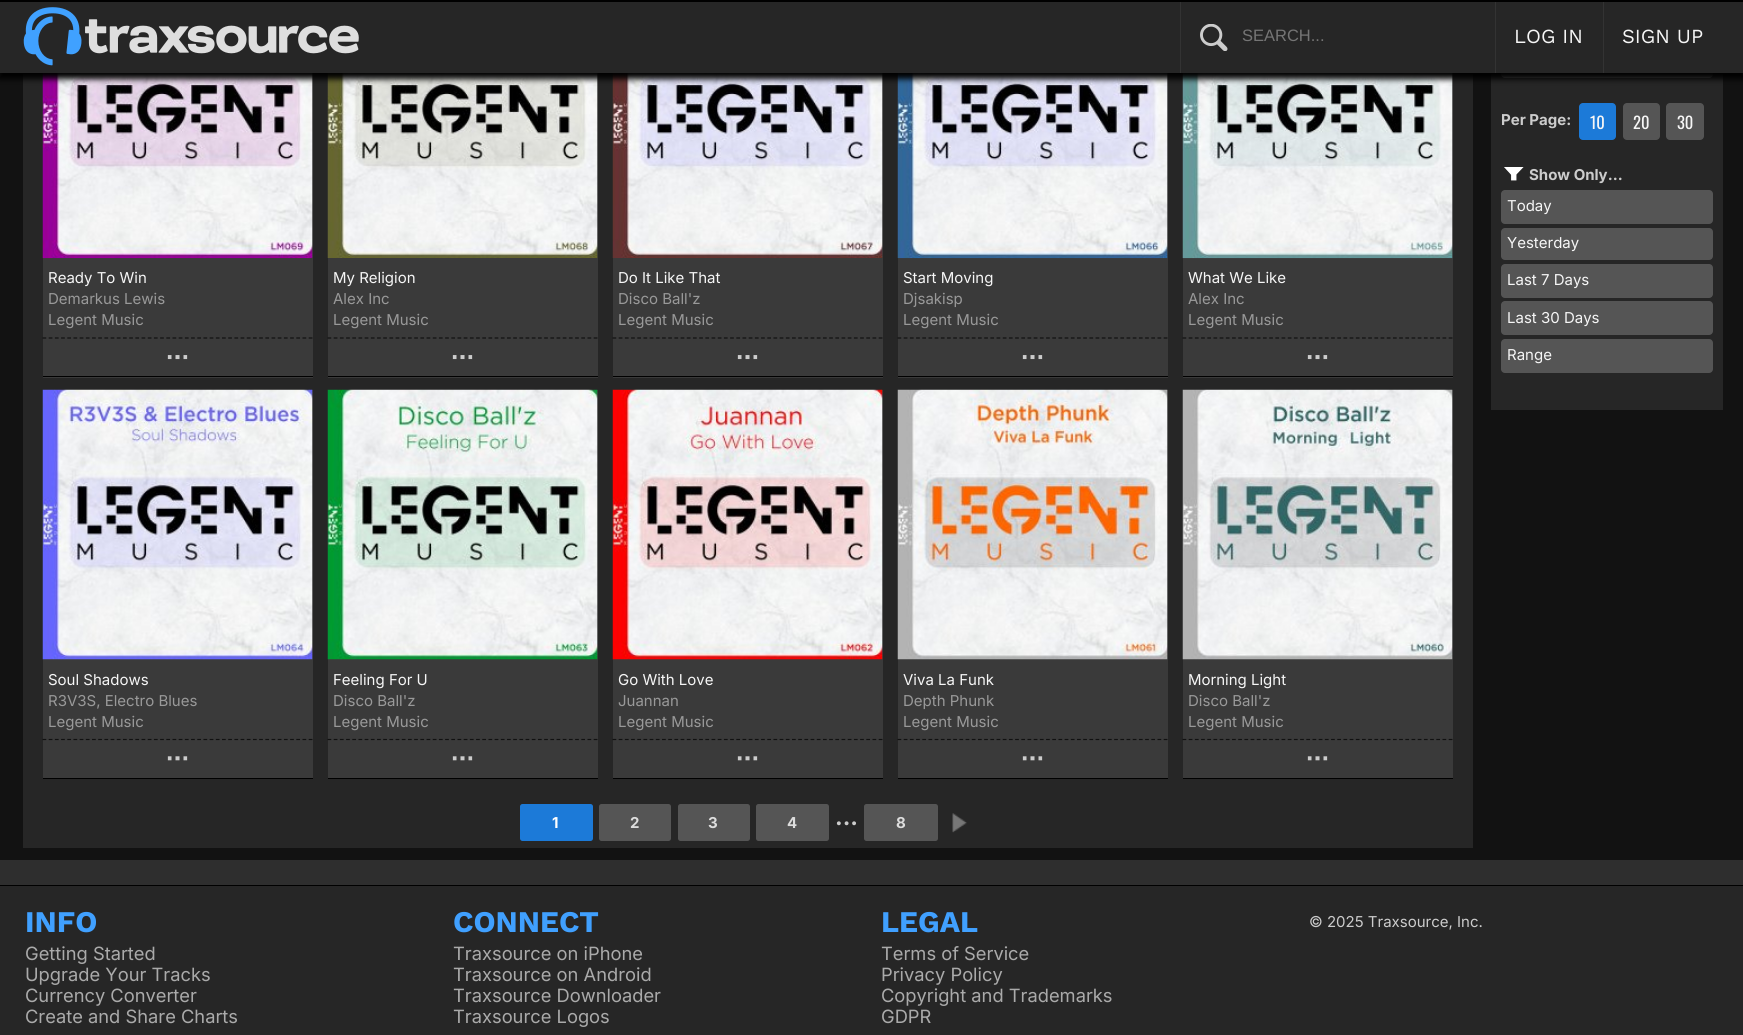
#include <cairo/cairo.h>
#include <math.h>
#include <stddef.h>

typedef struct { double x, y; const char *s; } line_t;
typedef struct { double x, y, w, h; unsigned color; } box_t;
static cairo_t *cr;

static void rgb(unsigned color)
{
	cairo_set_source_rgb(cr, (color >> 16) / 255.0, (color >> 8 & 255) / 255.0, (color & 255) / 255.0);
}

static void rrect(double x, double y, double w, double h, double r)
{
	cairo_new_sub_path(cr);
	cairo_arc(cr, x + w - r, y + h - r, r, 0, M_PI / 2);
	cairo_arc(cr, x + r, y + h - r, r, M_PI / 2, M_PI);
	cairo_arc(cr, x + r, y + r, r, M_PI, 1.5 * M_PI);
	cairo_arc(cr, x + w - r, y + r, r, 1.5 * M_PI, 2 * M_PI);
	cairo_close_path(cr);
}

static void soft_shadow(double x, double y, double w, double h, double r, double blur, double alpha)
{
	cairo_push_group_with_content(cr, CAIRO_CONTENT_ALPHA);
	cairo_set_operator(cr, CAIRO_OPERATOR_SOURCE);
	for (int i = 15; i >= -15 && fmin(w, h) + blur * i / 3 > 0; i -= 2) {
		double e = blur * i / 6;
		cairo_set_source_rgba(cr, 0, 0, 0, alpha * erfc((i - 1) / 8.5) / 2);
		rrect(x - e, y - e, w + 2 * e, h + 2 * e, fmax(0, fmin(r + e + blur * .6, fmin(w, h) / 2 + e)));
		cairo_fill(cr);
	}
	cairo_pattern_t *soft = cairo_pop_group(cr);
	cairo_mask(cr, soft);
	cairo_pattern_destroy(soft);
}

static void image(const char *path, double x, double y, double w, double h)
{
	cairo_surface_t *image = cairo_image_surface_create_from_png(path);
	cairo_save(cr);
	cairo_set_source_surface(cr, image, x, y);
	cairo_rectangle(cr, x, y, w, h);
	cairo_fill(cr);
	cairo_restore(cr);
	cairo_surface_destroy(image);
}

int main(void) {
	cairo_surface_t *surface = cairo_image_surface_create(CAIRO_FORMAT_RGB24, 1743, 1035);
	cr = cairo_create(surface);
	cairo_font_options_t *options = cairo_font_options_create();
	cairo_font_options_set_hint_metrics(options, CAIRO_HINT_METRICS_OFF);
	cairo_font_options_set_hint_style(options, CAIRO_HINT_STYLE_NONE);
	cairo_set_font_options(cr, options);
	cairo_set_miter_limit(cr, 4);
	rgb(0x121212);
	cairo_paint(cr);
	rgb(0x262626);
	cairo_rectangle(cr, 1491, 73, 232, 337);
	cairo_fill(cr);
	rgb(0x555555);
	rrect(1501, 44, 212, 34, 4);
	cairo_fill(cr);
	rgb(0x262626);
	cairo_rectangle(cr, 23, 73, 1450, 775);
	cairo_fill(cr);
	rgb(0x3a3a3a);
	cairo_rectangle(cr, 43, 73, 270, 305);
	cairo_fill(cr);
	image("img/4.png", 42, 73, 271, 186);
	cairo_rectangle(cr, 328, 73, 270, 305);
	cairo_fill(cr);
	image("img/6.png", 327, 73, 271, 185);
	cairo_rectangle(cr, 613, 73, 270, 305);
	cairo_fill(cr);
	image("img/7.png", 612, 73, 271, 185);
	cairo_rectangle(cr, 898, 73, 270, 305);
	cairo_fill(cr);
	image("img/8.png", 897, 73, 271, 186);
	cairo_rectangle(cr, 1183, 73, 270, 305);
	cairo_fill(cr);
	image("img/9.png", 1182, 73, 271, 186);
	rgb(0x000000);
	soft_shadow(-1, 4, 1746, 75, 0, 3, 1);
	{
		static const box_t items[] = {
			{0, 2, 1743, 71, 0x262626},
			{1180, 0, 1, 73, 0x333333},
			{1495, 0, 1, 73, 0x333333},
			{1603, 0, 1, 73, 0x333333},
			{0, 0, 1743, 2, 0x000000},
		};
		for (size_t i = 0; i < sizeof items / sizeof *items; i++) {
			rgb(items[i].color);
			cairo_rectangle(cr, items[i].x, items[i].y, items[i].w, items[i].h);
			cairo_fill(cr);
		}
	}
	image("img/1.png", 23, 7, 336, 59);
	image("img/2.png", 1200, 24, 28, 27);
	rgb(0x1c7ad8);
	rrect(1579, 103, 37, 37, 4);
	cairo_fill(cr);
	rgb(0x555555);
	rrect(1623, 103, 37, 37, 4);
	cairo_fill(cr);
	rrect(1666, 103, 38, 37, 4);
	cairo_fill(cr);
	image("img/3.png", 1504, 167, 20, 14);
	rrect(1501, 190, 212, 34, 4);
	cairo_fill(cr);
	rrect(1501, 228, 212, 32, 4);
	cairo_fill(cr);
	rrect(1501, 264, 212, 34, 4);
	cairo_fill(cr);
	rrect(1501, 301, 212, 34, 4);
	cairo_fill(cr);
	rrect(1501, 339, 212, 34, 4);
	cairo_fill(cr);
	cairo_new_path(cr);
	cairo_move_to(cr, 42.5, 338);
	cairo_line_to(cr, 312.5, 338);
	rgb(0x111111);
	cairo_set_line_width(cr, 1.2);
	cairo_set_dash(cr, (double[]){3.75, 2.44}, 2, 0);
	cairo_stroke(cr);
	rgb(0x000000);
	cairo_rectangle(cr, 43, 376, 270, 1);
	cairo_fill(cr);
	image("img/5.png", 167, 355, 21, 5);
	cairo_new_path(cr);
	cairo_move_to(cr, 327.5, 338);
	cairo_line_to(cr, 597.5, 338);
	rgb(0x111111);
	cairo_stroke(cr);
	rgb(0x000000);
	cairo_rectangle(cr, 328, 376, 270, 1);
	cairo_fill(cr);
	image("img/5.png", 452, 355, 21, 5);
	cairo_new_path(cr);
	cairo_move_to(cr, 612.5, 338);
	cairo_line_to(cr, 882.5, 338);
	rgb(0x111111);
	cairo_stroke(cr);
	rgb(0x000000);
	cairo_rectangle(cr, 613, 376, 270, 1);
	cairo_fill(cr);
	image("img/5.png", 737, 355, 21, 5);
	cairo_new_path(cr);
	cairo_move_to(cr, 897.5, 338);
	cairo_line_to(cr, 1167.5, 338);
	rgb(0x111111);
	cairo_stroke(cr);
	rgb(0x000000);
	cairo_rectangle(cr, 898, 376, 270, 1);
	cairo_fill(cr);
	image("img/5.png", 1022, 355, 21, 5);
	cairo_new_path(cr);
	cairo_move_to(cr, 1182.5, 338);
	cairo_line_to(cr, 1452.5, 338);
	rgb(0x111111);
	cairo_stroke(cr);
	rgb(0x000000);
	cairo_rectangle(cr, 1183, 376, 270, 1);
	cairo_fill(cr);
	image("img/5.png", 1307, 355, 21, 5);
	rgb(0x3a3a3a);
	cairo_rectangle(cr, 43, 390, 270, 388);
	cairo_fill(cr);
	image("img/10.png", 42, 389, 271, 271);
	cairo_new_path(cr);
	cairo_move_to(cr, 42.5, 739.5);
	cairo_line_to(cr, 312.5, 739.5);
	rgb(0x111111);
	cairo_stroke(cr);
	rgb(0x000000);
	cairo_rectangle(cr, 43, 778, 270, 1);
	cairo_fill(cr);
	image("img/11.png", 167, 756, 21, 5);
	rgb(0x3a3a3a);
	cairo_rectangle(cr, 328, 390, 270, 388);
	cairo_fill(cr);
	image("img/12.png", 327, 389, 271, 271);
	cairo_new_path(cr);
	cairo_move_to(cr, 327.5, 739.5);
	cairo_line_to(cr, 597.5, 739.5);
	rgb(0x111111);
	cairo_stroke(cr);
	rgb(0x000000);
	cairo_rectangle(cr, 328, 778, 270, 1);
	cairo_fill(cr);
	image("img/11.png", 452, 756, 21, 5);
	rgb(0x3a3a3a);
	cairo_rectangle(cr, 613, 390, 270, 388);
	cairo_fill(cr);
	image("img/13.png", 612, 389, 271, 271);
	cairo_new_path(cr);
	cairo_move_to(cr, 612.5, 739.5);
	cairo_line_to(cr, 882.5, 739.5);
	rgb(0x111111);
	cairo_stroke(cr);
	rgb(0x000000);
	cairo_rectangle(cr, 613, 778, 270, 1);
	cairo_fill(cr);
	image("img/11.png", 737, 756, 21, 5);
	rgb(0x3a3a3a);
	cairo_rectangle(cr, 898, 390, 270, 388);
	cairo_fill(cr);
	image("img/14.png", 897, 389, 271, 271);
	cairo_new_path(cr);
	cairo_move_to(cr, 897.5, 739.5);
	cairo_line_to(cr, 1167.5, 739.5);
	rgb(0x111111);
	cairo_stroke(cr);
	rgb(0x000000);
	cairo_rectangle(cr, 898, 778, 270, 1);
	cairo_fill(cr);
	image("img/11.png", 1022, 756, 21, 5);
	rgb(0x3a3a3a);
	cairo_rectangle(cr, 1183, 390, 270, 388);
	cairo_fill(cr);
	image("img/15.png", 1182, 389, 271, 271);
	cairo_new_path(cr);
	cairo_move_to(cr, 1182.5, 739.5);
	cairo_line_to(cr, 1452.5, 739.5);
	rgb(0x111111);
	cairo_stroke(cr);
	rgb(0x000000);
	cairo_rectangle(cr, 1183, 778, 270, 1);
	cairo_fill(cr);
	image("img/11.png", 1307, 756, 21, 5);
	rgb(0x1c7ad8);
	rrect(520, 804, 73, 37, 2.5);
	cairo_fill(cr);
	rgb(0x555555);
	rrect(599, 804, 72, 37, 2.5);
	cairo_fill(cr);
	rrect(678, 804, 72, 37, 2.5);
	cairo_fill(cr);
	rrect(756, 804, 73, 37, 2.5);
	cairo_fill(cr);
	rrect(864, 804, 74, 37, 2.5);
	cairo_fill(cr);
	image("img/16.png", 952, 813, 15, 20);
	{
		static const box_t items[] = {
			{0, 886, 1743, 149, 0x262626},
			{0, 860, 1743, 25, 0x2e2e2e},
			{0, 885, 1743, 1, 0x000000},
		};
		for (size_t i = 0; i < sizeof items / sizeof *items; i++) {
			rgb(items[i].color);
			cairo_rectangle(cr, items[i].x, items[i].y, items[i].w, items[i].h);
			cairo_fill(cr);
		}
	}
	cairo_select_font_face(cr, "Liberation Sans", CAIRO_FONT_SLANT_NORMAL, CAIRO_FONT_WEIGHT_NORMAL);
	cairo_set_font_size(cr, 16.5);
	rgb(0x757575);
	cairo_move_to(cr, 1242, 41);
	cairo_show_text(cr, "SEARCH...");
	cairo_select_font_face(cr, "Work Sans", CAIRO_FONT_SLANT_NORMAL, CAIRO_FONT_WEIGHT_NORMAL);
	cairo_set_font_size(cr, 20);
	rgb(0xf6f6f6);
	cairo_move_to(cr, 1514, 43);
	cairo_show_text(cr, "LOG IN");
	cairo_move_to(cr, 1622, 43);
	cairo_show_text(cr, "SIGN UP");
	cairo_select_font_face(cr, "Inter", CAIRO_FONT_SLANT_NORMAL, CAIRO_FONT_WEIGHT_BOLD);
	cairo_set_font_size(cr, 15);
	rgb(0xcccccc);
	cairo_move_to(cr, 1501, 125);
	cairo_show_text(cr, "Per Page:");
	cairo_select_font_face(cr, "Oswald", CAIRO_FONT_SLANT_NORMAL, CAIRO_FONT_WEIGHT_NORMAL);
	cairo_set_font_size(cr, 16.5);
	rgb(0xf6f6f6);
	{
		static const line_t items[] = {
			{1590, 129, "10"},
			{1633, 129, "20"},
			{1677, 129, "30"},
		};
		for (size_t i = 0; i < sizeof items / sizeof *items; i++) {
			cairo_move_to(cr, items[i].x, items[i].y);
			cairo_show_text(cr, items[i].s);
		}
	}
	cairo_select_font_face(cr, "Inter", CAIRO_FONT_SLANT_NORMAL, CAIRO_FONT_WEIGHT_BOLD);
	cairo_set_font_size(cr, 15);
	rgb(0xcccccc);
	cairo_move_to(cr, 1529, 180);
	cairo_show_text(cr, "Show Only...");
	cairo_select_font_face(cr, "Inter", CAIRO_FONT_SLANT_NORMAL, CAIRO_FONT_WEIGHT_NORMAL);
	rgb(0xf6f6f6);
	{
		static const line_t items[] = {
			{1507, 211, "Today"},
			{1507, 248, "Yesterday"},
			{1507, 285, "Last 7 Days"},
			{1507, 323, "Last 30 Days"},
			{1507, 360, "Range"},
			{48, 283, "Ready To Win"},
		};
		for (size_t i = 0; i < sizeof items / sizeof *items; i++) {
			cairo_move_to(cr, items[i].x, items[i].y);
			cairo_show_text(cr, items[i].s);
		}
	}
	rgb(0x999999);
	cairo_move_to(cr, 48, 304);
	cairo_show_text(cr, "Demarkus Lewis");
	cairo_move_to(cr, 48, 325);
	cairo_show_text(cr, "Legent Music");
	rgb(0xf6f6f6);
	cairo_move_to(cr, 333, 283);
	cairo_show_text(cr, "My Religion");
	rgb(0x999999);
	cairo_move_to(cr, 333, 304);
	cairo_show_text(cr, "Alex Inc");
	cairo_move_to(cr, 333, 325);
	cairo_show_text(cr, "Legent Music");
	rgb(0xf6f6f6);
	cairo_move_to(cr, 618, 283);
	cairo_show_text(cr, "Do It Like That");
	rgb(0x999999);
	cairo_move_to(cr, 618, 304);
	cairo_show_text(cr, "Disco Ball'z");
	cairo_move_to(cr, 618, 325);
	cairo_show_text(cr, "Legent Music");
	rgb(0xf6f6f6);
	cairo_move_to(cr, 903, 283);
	cairo_show_text(cr, "Start Moving");
	rgb(0x999999);
	cairo_move_to(cr, 903, 304);
	cairo_show_text(cr, "Djsakisp");
	cairo_move_to(cr, 903, 325);
	cairo_show_text(cr, "Legent Music");
	rgb(0xf6f6f6);
	cairo_move_to(cr, 1188, 283);
	cairo_show_text(cr, "What We Like");
	rgb(0x999999);
	cairo_move_to(cr, 1188, 304);
	cairo_show_text(cr, "Alex Inc");
	cairo_move_to(cr, 1188, 325);
	cairo_show_text(cr, "Legent Music");
	rgb(0xf6f6f6);
	cairo_move_to(cr, 48, 685);
	cairo_show_text(cr, "Soul Shadows");
	rgb(0x999999);
	cairo_move_to(cr, 48, 706);
	cairo_show_text(cr, "R3V3S, Electro Blues");
	cairo_move_to(cr, 48, 727);
	cairo_show_text(cr, "Legent Music");
	rgb(0xf6f6f6);
	cairo_move_to(cr, 333, 685);
	cairo_show_text(cr, "Feeling For U");
	rgb(0x999999);
	cairo_move_to(cr, 333, 706);
	cairo_show_text(cr, "Disco Ball'z");
	cairo_move_to(cr, 333, 727);
	cairo_show_text(cr, "Legent Music");
	rgb(0xf6f6f6);
	cairo_move_to(cr, 618, 685);
	cairo_show_text(cr, "Go With Love");
	rgb(0x999999);
	cairo_move_to(cr, 618, 706);
	cairo_show_text(cr, "Juannan");
	cairo_move_to(cr, 618, 727);
	cairo_show_text(cr, "Legent Music");
	rgb(0xf6f6f6);
	cairo_move_to(cr, 903, 685);
	cairo_show_text(cr, "Viva La Funk");
	rgb(0x999999);
	cairo_move_to(cr, 903, 706);
	cairo_show_text(cr, "Depth Phunk");
	cairo_move_to(cr, 903, 727);
	cairo_show_text(cr, "Legent Music");
	rgb(0xf6f6f6);
	cairo_move_to(cr, 1188, 685);
	cairo_show_text(cr, "Morning Light");
	rgb(0x999999);
	cairo_move_to(cr, 1188, 706);
	cairo_show_text(cr, "Disco Ball'z");
	cairo_move_to(cr, 1188, 727);
	cairo_show_text(cr, "Legent Music");
	cairo_select_font_face(cr, "Inter", CAIRO_FONT_SLANT_NORMAL, CAIRO_FONT_WEIGHT_BOLD);
	rgb(0xffffff);
	cairo_move_to(cr, 552, 828);
	cairo_show_text(cr, "1");
	rgb(0xdddddd);
	{
		static const line_t items[] = {
			{630, 828, "2"},
			{708, 828, "3"},
			{787, 828, "4"},
		};
		for (size_t i = 0; i < sizeof items / sizeof *items; i++) {
			cairo_move_to(cr, items[i].x, items[i].y);
			cairo_show_text(cr, items[i].s);
		}
	}
	cairo_set_font_size(cr, 23);
	rgb(0xcccccc);
	cairo_move_to(cr, 835, 825);
	cairo_show_text(cr, "...");
	cairo_set_font_size(cr, 15);
	rgb(0xdddddd);
	cairo_move_to(cr, 896, 828);
	cairo_show_text(cr, "8");
	cairo_select_font_face(cr, "Work Sans", CAIRO_FONT_SLANT_NORMAL, CAIRO_FONT_WEIGHT_BOLD);
	cairo_set_font_size(cr, 30);
	rgb(0x40a0ff);
	cairo_move_to(cr, 25, 932);
	cairo_show_text(cr, "INFO");
	cairo_select_font_face(cr, "Inter", CAIRO_FONT_SLANT_NORMAL, CAIRO_FONT_WEIGHT_NORMAL);
	cairo_set_font_size(cr, 18.3);
	rgb(0xaaaaaa);
	{
		static const line_t items[] = {
			{25, 960, "Getting Started"},
			{25, 981, "Upgrade Your Tracks"},
			{25, 1002, "Currency Converter"},
			{25, 1023, "Create and Share Charts"},
		};
		for (size_t i = 0; i < sizeof items / sizeof *items; i++) {
			cairo_move_to(cr, items[i].x, items[i].y);
			cairo_show_text(cr, items[i].s);
		}
	}
	cairo_select_font_face(cr, "Work Sans", CAIRO_FONT_SLANT_NORMAL, CAIRO_FONT_WEIGHT_BOLD);
	cairo_set_font_size(cr, 30);
	rgb(0x40a0ff);
	cairo_move_to(cr, 453, 932);
	cairo_show_text(cr, "CONNECT");
	cairo_select_font_face(cr, "Inter", CAIRO_FONT_SLANT_NORMAL, CAIRO_FONT_WEIGHT_NORMAL);
	cairo_set_font_size(cr, 18.3);
	rgb(0xaaaaaa);
	{
		static const line_t items[] = {
			{453, 960, "Traxsource on iPhone"},
			{453, 981, "Traxsource on Android"},
			{453, 1002, "Traxsource Downloader"},
			{453, 1023, "Traxsource Logos"},
		};
		for (size_t i = 0; i < sizeof items / sizeof *items; i++) {
			cairo_move_to(cr, items[i].x, items[i].y);
			cairo_show_text(cr, items[i].s);
		}
	}
	cairo_select_font_face(cr, "Work Sans", CAIRO_FONT_SLANT_NORMAL, CAIRO_FONT_WEIGHT_BOLD);
	cairo_set_font_size(cr, 30);
	rgb(0x40a0ff);
	cairo_move_to(cr, 881, 932);
	cairo_show_text(cr, "LEGAL");
	cairo_select_font_face(cr, "Inter", CAIRO_FONT_SLANT_NORMAL, CAIRO_FONT_WEIGHT_NORMAL);
	cairo_set_font_size(cr, 18.3);
	rgb(0xaaaaaa);
	{
		static const line_t items[] = {
			{881, 960, "Terms of Service"},
			{881, 981, "Privacy Policy"},
			{881, 1002, "Copyright and Trademarks"},
			{881, 1023, "GDPR"},
		};
		for (size_t i = 0; i < sizeof items / sizeof *items; i++) {
			cairo_move_to(cr, items[i].x, items[i].y);
			cairo_show_text(cr, items[i].s);
		}
	}
	cairo_set_font_size(cr, 15);
	rgb(0xcccccc);
	cairo_move_to(cr, 1309, 927);
	cairo_show_text(cr, "© 2025 Traxsource, Inc.");
	cairo_surface_write_to_png(surface, "page.png");
	cairo_font_options_destroy(options);
	cairo_destroy(cr);
	cairo_surface_destroy(surface);
	return 0;
}
